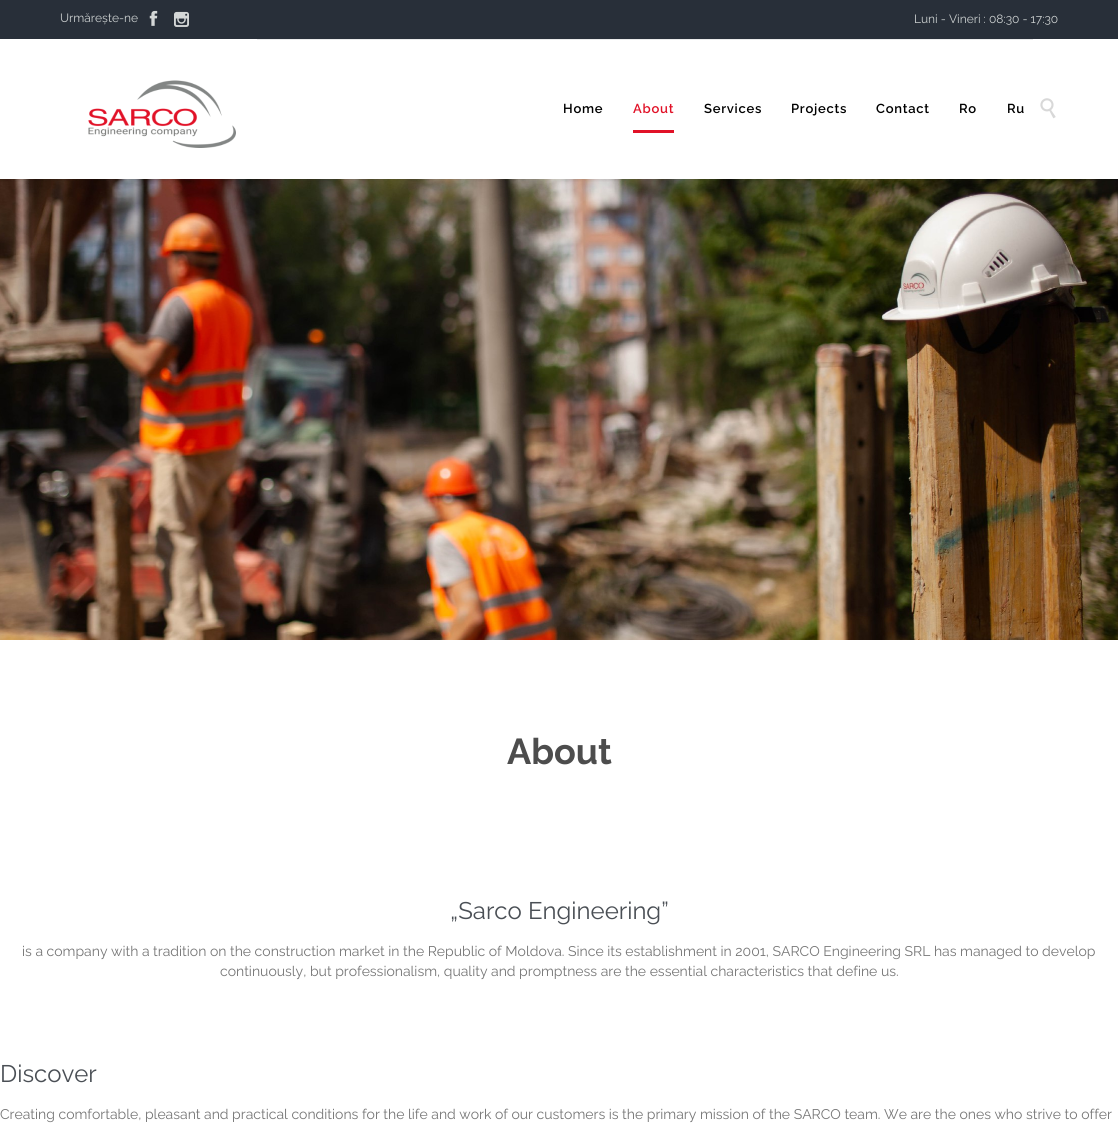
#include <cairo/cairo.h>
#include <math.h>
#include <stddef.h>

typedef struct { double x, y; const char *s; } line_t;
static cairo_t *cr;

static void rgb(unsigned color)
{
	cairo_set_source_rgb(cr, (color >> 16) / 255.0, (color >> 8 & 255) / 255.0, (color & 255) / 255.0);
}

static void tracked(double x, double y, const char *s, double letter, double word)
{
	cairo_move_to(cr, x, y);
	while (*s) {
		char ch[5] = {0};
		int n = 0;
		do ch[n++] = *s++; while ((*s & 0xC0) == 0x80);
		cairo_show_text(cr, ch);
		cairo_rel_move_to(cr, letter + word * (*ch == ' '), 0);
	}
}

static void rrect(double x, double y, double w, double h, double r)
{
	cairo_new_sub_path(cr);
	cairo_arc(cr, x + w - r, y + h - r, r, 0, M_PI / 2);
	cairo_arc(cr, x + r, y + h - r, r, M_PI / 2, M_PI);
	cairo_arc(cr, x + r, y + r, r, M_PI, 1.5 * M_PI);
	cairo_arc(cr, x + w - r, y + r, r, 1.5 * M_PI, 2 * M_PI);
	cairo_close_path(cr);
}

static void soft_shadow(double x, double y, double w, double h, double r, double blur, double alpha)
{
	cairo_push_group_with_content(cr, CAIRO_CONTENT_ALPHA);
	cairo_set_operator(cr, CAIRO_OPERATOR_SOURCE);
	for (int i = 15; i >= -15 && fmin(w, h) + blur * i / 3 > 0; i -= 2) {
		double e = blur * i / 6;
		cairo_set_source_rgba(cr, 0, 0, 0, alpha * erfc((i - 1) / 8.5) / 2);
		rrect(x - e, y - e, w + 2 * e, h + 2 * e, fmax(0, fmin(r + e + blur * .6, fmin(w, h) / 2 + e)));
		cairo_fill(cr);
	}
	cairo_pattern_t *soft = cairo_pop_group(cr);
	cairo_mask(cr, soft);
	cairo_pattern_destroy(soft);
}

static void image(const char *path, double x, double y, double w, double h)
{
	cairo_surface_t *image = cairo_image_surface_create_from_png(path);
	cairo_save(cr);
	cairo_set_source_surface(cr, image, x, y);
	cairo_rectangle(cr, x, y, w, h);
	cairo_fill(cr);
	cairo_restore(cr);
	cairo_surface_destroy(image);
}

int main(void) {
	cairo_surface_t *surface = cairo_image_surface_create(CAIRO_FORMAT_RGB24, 1118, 1129);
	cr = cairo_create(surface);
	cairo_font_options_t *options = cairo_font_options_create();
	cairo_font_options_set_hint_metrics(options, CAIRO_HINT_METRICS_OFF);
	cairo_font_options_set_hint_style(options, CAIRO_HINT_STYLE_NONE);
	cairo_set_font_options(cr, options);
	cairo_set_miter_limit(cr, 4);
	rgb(0xffffff);
	cairo_paint(cr);
	image("img/6.png", 1117, 179, 1, 461);
	image("img/5.png", 0, 179, 1118, 461);
	rgb(0x000000);
	soft_shadow(0, 2, 1118, 179, 0, 1, 0.04);
	rgb(0xffffff);
	cairo_rectangle(cr, 0, 39, 1118, 140);
	cairo_fill(cr);
	rgb(0x282f39);
	cairo_rectangle(cr, 0, 0, 1118, 39);
	cairo_fill(cr);
	image("img/1.png", 149, 10, 9, 16);
	image("img/2.png", 174, 11, 15, 16);
	image("img/3.png", 88, 80, 148, 68);
	rgb(0xeaeaeb);
	cairo_rectangle(cr, 257, 39, 776, 1);
	cairo_fill(cr);
	rgb(0xe11127);
	cairo_rectangle(cr, 633, 130, 41, 3);
	cairo_fill(cr);
	image("img/4.png", 1040, 98, 16, 21);
	cairo_select_font_face(cr, "Raleway", CAIRO_FONT_SLANT_NORMAL, CAIRO_FONT_WEIGHT_NORMAL);
	cairo_set_font_size(cr, 12);
	rgb(0xccd0d0);
	cairo_move_to(cr, 60, 22);
	cairo_show_text(cr, "Urmărește-ne");
	cairo_move_to(cr, 914, 23);
	cairo_show_text(cr, "Luni - Vineri : 08:30 - 17:30");
	cairo_select_font_face(cr, "Raleway SemiBold", CAIRO_FONT_SLANT_NORMAL, CAIRO_FONT_WEIGHT_NORMAL);
	cairo_set_font_size(cr, 13);
	rgb(0x000000);
	tracked(563, 113, "Home", 0.75, 0);
	rgb(0xe11127);
	tracked(633, 113, "About", 0.75, 0);
	rgb(0x000000);
	{
		static const line_t items[] = {
			{704, 113, "Services"},
			{791, 113, "Projects"},
			{876, 113, "Contact"},
			{959, 113, "Ro"},
			{1007, 113, "Ru"},
		};
		for (size_t i = 0; i < sizeof items / sizeof *items; i++) {
			tracked(items[i].x, items[i].y, items[i].s, 0.75, 0);
		}
	}
	cairo_select_font_face(cr, "Raleway", CAIRO_FONT_SLANT_NORMAL, CAIRO_FONT_WEIGHT_BOLD);
	cairo_set_font_size(cr, 36);
	rgb(0x4d4d4d);
	cairo_move_to(cr, 507, 764);
	cairo_show_text(cr, "About");
	cairo_select_font_face(cr, "Raleway", CAIRO_FONT_SLANT_NORMAL, CAIRO_FONT_WEIGHT_NORMAL);
	cairo_set_font_size(cr, 24);
	rgb(0x4a4f55);
	cairo_move_to(cr, 450, 919);
	cairo_show_text(cr, "„Sarco Engineering”");
	cairo_set_font_size(cr, 14);
	rgb(0x767676);
	cairo_move_to(cr, 22, 956);
	cairo_show_text(cr, "is a company with a tradition on the construction market in the Republic of Moldova. Since its establishment in 2001, SARCO Engineering SRL has managed to develop");
	cairo_move_to(cr, 220, 976);
	cairo_show_text(cr, "continuously, but professionalism, quality and promptness are the essential characteristics that define us.");
	cairo_set_font_size(cr, 24);
	rgb(0x4a4f55);
	cairo_move_to(cr, 0, 1082);
	cairo_show_text(cr, "Discover");
	cairo_set_font_size(cr, 14);
	rgb(0x767676);
	cairo_move_to(cr, 0, 1119);
	cairo_show_text(cr, "Creating comfortable, pleasant and practical conditions for the life and work of our customers is the primary mission of the SARCO team. We are the ones who strive to offer");
	cairo_surface_write_to_png(surface, "page.png");
	cairo_font_options_destroy(options);
	cairo_destroy(cr);
	cairo_surface_destroy(surface);
	return 0;
}
